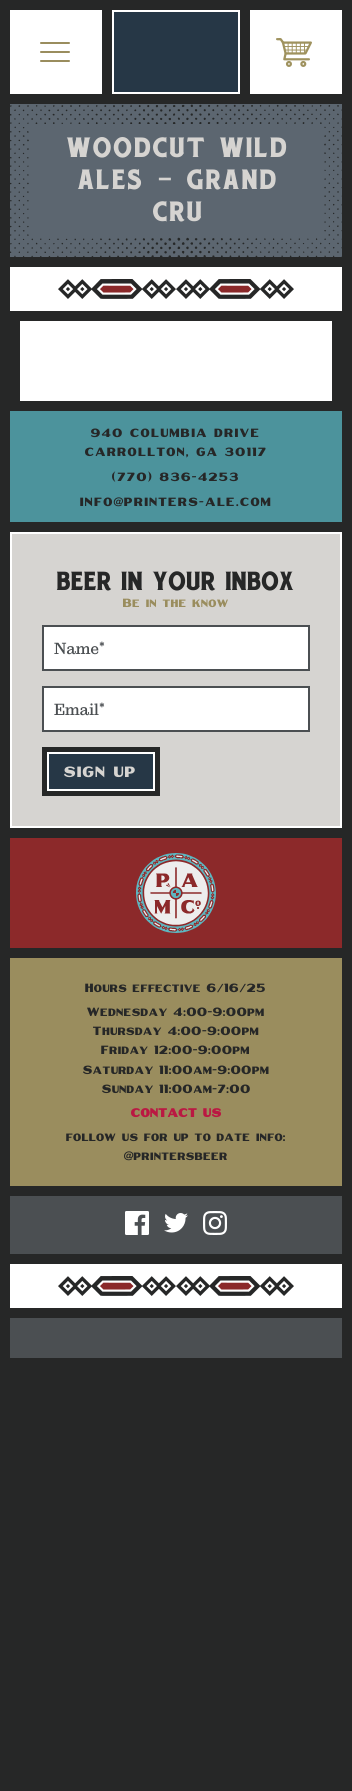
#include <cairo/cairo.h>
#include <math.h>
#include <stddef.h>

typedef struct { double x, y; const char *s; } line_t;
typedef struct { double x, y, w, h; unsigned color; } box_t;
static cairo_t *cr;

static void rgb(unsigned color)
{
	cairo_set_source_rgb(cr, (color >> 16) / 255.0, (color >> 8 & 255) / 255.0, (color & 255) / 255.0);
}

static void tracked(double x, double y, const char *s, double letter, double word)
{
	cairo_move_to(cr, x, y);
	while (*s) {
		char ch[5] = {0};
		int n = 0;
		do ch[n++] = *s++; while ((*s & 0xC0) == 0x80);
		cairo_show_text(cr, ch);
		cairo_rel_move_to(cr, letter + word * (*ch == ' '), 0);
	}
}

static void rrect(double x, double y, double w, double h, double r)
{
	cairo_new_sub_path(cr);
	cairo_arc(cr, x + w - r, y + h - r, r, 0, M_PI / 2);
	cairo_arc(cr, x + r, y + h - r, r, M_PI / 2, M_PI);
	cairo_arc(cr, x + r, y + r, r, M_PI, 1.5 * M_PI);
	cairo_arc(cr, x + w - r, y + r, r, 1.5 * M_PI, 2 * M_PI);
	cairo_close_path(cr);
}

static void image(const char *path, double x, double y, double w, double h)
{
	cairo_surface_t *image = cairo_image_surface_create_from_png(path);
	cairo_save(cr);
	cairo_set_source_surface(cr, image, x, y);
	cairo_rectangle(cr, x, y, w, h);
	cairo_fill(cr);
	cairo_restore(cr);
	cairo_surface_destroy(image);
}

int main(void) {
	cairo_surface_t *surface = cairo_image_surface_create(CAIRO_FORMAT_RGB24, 352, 1791);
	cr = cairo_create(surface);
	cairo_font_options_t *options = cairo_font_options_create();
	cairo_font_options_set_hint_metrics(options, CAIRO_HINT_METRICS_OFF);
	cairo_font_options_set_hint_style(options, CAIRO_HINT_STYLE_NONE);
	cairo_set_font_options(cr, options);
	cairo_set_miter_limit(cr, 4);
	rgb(0x262727);
	cairo_paint(cr);
	rgb(0xffffff);
	cairo_rectangle(cr, 10, 10, 332, 84);
	cairo_fill(cr);
	rgb(0x9a8d5e);
	rrect(40, 42, 30, 2, 1);
	cairo_fill(cr);
	rrect(40, 51, 30, 2, 1);
	cairo_fill(cr);
	rrect(40, 60, 30, 2, 1);
	cairo_fill(cr);
	{
		static const box_t items[] = {
			{114, 12, 124, 80, 0x263746},
			{240, 10, 10, 84, 0x262727},
			{102, 10, 10, 84, 0x262727},
		};
		for (size_t i = 0; i < sizeof items / sizeof *items; i++) {
			rgb(items[i].color);
			cairo_rectangle(cr, items[i].x, items[i].y, items[i].w, items[i].h);
			cairo_fill(cr);
		}
	}
	image("img/1.png", 276, 38, 36, 29);
	rgb(0x5c6670);
	cairo_rectangle(cr, 10, 104, 332, 153);
	cairo_fill(cr);
	image("img/2.png", 10, 104, 332, 153);
	cairo_rectangle(cr, 31, 124, 291, 113);
	cairo_fill(cr);
	rgb(0xffffff);
	cairo_rectangle(cr, 10, 267, 332, 44);
	cairo_fill(cr);
	image("img/3.png", 58, 279, 118, 20);
	image("img/3.png", 176, 279, 118, 20);
	cairo_rectangle(cr, 20, 321, 312, 80);
	cairo_fill(cr);
	rgb(0x4c939c);
	cairo_rectangle(cr, 10, 411, 332, 111);
	cairo_fill(cr);
	rgb(0xd6d4d1);
	cairo_rectangle(cr, 11, 533, 330, 294);
	cairo_fill_preserve(cr);
	rgb(0xffffff);
	cairo_stroke(cr);
	cairo_rectangle(cr, 43, 626, 266, 44);
	cairo_fill_preserve(cr);
	rgb(0x4b4f52);
	cairo_stroke(cr);
	rgb(0xffffff);
	cairo_rectangle(cr, 43, 687, 266, 44);
	cairo_fill_preserve(cr);
	rgb(0x4b4f52);
	cairo_stroke(cr);
	rgb(0x263746);
	cairo_rectangle(cr, 49, 754, 104, 35);
	cairo_fill(cr);
	cairo_rectangle(cr, 44.5, 749.5, 113, 44);
	rgb(0x262727);
	cairo_set_line_width(cr, 5);
	cairo_stroke(cr);
	cairo_rectangle(cr, 48, 753, 106, 37);
	rgb(0xffffff);
	cairo_set_line_width(cr, 2);
	cairo_stroke(cr);
	rgb(0x8c292a);
	cairo_rectangle(cr, 10, 838, 332, 110);
	cairo_fill(cr);
	image("img/4.png", 136, 853, 80, 80);
	rgb(0x9a8d5e);
	cairo_rectangle(cr, 10, 958, 332, 228);
	cairo_fill(cr);
	rgb(0x4b4f52);
	cairo_rectangle(cr, 10, 1196, 332, 58);
	cairo_fill(cr);
	image("img/5.png", 125, 1211, 24, 24);
	image("img/6.png", 164, 1213, 24, 20);
	image("img/7.png", 203, 1211, 24, 24);
	rgb(0xffffff);
	cairo_rectangle(cr, 10, 1264, 332, 44);
	cairo_fill(cr);
	image("img/3.png", 58, 1276, 118, 20);
	image("img/3.png", 176, 1276, 118, 20);
	rgb(0x4b4f52);
	cairo_rectangle(cr, 10, 1318, 332, 40);
	cairo_fill(cr);
	cairo_select_font_face(cr, "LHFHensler", CAIRO_FONT_SLANT_NORMAL, CAIRO_FONT_WEIGHT_NORMAL);
	cairo_set_font_size(cr, 32);
	rgb(0xd6d4d1);
	tracked(67, 157, "WOODCUT WILD", 1.6, 0);
	tracked(78, 189, "ALES", 1.6, 0);
	cairo_select_font_face(cr, "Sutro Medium", CAIRO_FONT_SLANT_NORMAL, CAIRO_FONT_WEIGHT_NORMAL);
	tracked(156, 189, "–", 1.6, 0);
	cairo_select_font_face(cr, "LHFHensler", CAIRO_FONT_SLANT_NORMAL, CAIRO_FONT_WEIGHT_NORMAL);
	tracked(187, 189, "GRAND", 1.6, 0);
	tracked(153, 221, "CRU", 1.6, 0);
	cairo_select_font_face(cr, "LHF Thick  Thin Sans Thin", CAIRO_FONT_SLANT_NORMAL, CAIRO_FONT_WEIGHT_NORMAL);
	cairo_set_font_size(cr, 16);
	rgb(0x262727);
	{
		static const line_t items[] = {
			{91, 437, "940 COLUMBIA DRIVE"},
			{85, 456, "CARROLLTON, GA 30117"},
			{112, 481, "(770) 836-4253"},
			{80, 506, "INFO@PRINTERS-ALE.COM"},
		};
		for (size_t i = 0; i < sizeof items / sizeof *items; i++) {
			tracked(items[i].x, items[i].y, items[i].s, 0.8, 0);
		}
	}
	cairo_select_font_face(cr, "LHFHensler", CAIRO_FONT_SLANT_NORMAL, CAIRO_FONT_WEIGHT_NORMAL);
	cairo_set_font_size(cr, 30);
	cairo_move_to(cr, 57, 590);
	cairo_show_text(cr, "BEER IN YOUR INBOX");
	cairo_select_font_face(cr, "LHF Thick  Thin Sans Thin", CAIRO_FONT_SLANT_NORMAL, CAIRO_FONT_WEIGHT_NORMAL);
	cairo_set_font_size(cr, 16);
	rgb(0x9a8d5e);
	cairo_move_to(cr, 123, 607);
	cairo_show_text(cr, "Be in the know");
	cairo_select_font_face(cr, "Sutro Medium", CAIRO_FONT_SLANT_NORMAL, CAIRO_FONT_WEIGHT_NORMAL);
	rgb(0x4b4f52);
	cairo_move_to(cr, 54, 654);
	cairo_show_text(cr, "Name*");
	cairo_move_to(cr, 54, 715);
	cairo_show_text(cr, "Email*");
	cairo_select_font_face(cr, "LHF Thick  Thin Sans Thin", CAIRO_FONT_SLANT_NORMAL, CAIRO_FONT_WEIGHT_NORMAL);
	cairo_set_font_size(cr, 20);
	rgb(0xd6d4d1);
	tracked(64, 777, "SIGN UP", 0.5, 0);
	cairo_set_font_size(cr, 16);
	rgb(0x262727);
	{
		static const line_t items[] = {
			{85, 992, "Hours effective 6/16/25"},
			{87, 1016, "Wednesday 4:00-9:00pm"},
			{93, 1035, "Thursday 4:00-9:00pm"},
			{101, 1054, "Friday 12:00-9:00pm"},
			{83, 1074, "Saturday 11:00am-9:00pm"},
			{102, 1093, "Sunday 11:00am-7:00"},
		};
		for (size_t i = 0; i < sizeof items / sizeof *items; i++) {
			cairo_move_to(cr, items[i].x, items[i].y);
			cairo_show_text(cr, items[i].s);
		}
	}
	cairo_select_font_face(cr, "LHF Thick  Thin Sans", CAIRO_FONT_SLANT_NORMAL, CAIRO_FONT_WEIGHT_BOLD);
	rgb(0xba1842);
	cairo_move_to(cr, 131, 1117);
	cairo_show_text(cr, "CONTACT US");
	cairo_select_font_face(cr, "LHF Thick  Thin Sans Thin", CAIRO_FONT_SLANT_NORMAL, CAIRO_FONT_WEIGHT_NORMAL);
	rgb(0x262727);
	cairo_move_to(cr, 66, 1141);
	cairo_show_text(cr, "follow us for up to date info:");
	cairo_move_to(cr, 124, 1160);
	cairo_show_text(cr, "@printersbeer");
	cairo_surface_write_to_png(surface, "page.png");
	cairo_font_options_destroy(options);
	cairo_destroy(cr);
	cairo_surface_destroy(surface);
	return 0;
}
